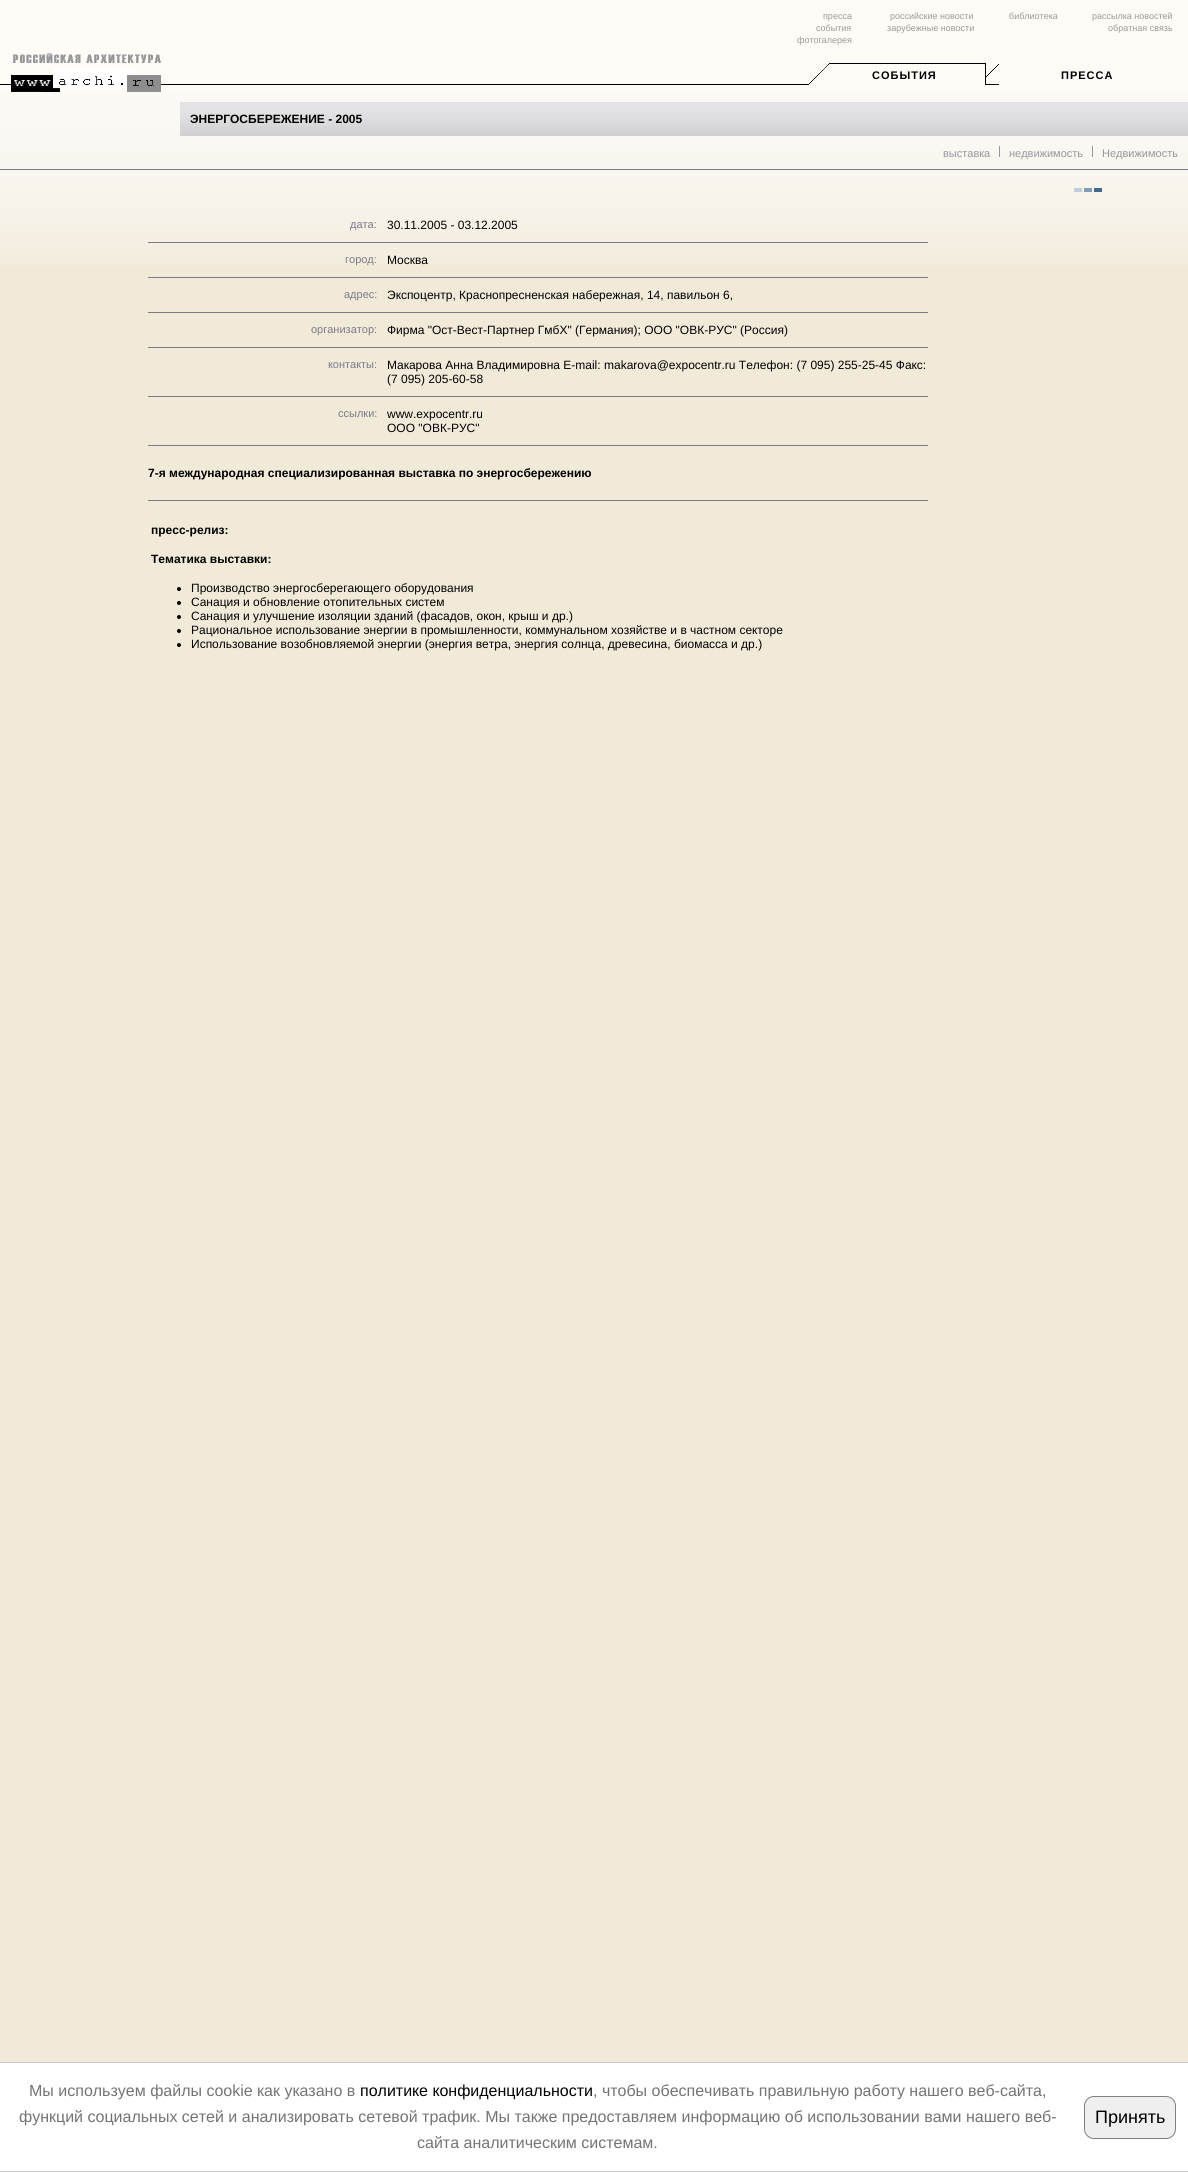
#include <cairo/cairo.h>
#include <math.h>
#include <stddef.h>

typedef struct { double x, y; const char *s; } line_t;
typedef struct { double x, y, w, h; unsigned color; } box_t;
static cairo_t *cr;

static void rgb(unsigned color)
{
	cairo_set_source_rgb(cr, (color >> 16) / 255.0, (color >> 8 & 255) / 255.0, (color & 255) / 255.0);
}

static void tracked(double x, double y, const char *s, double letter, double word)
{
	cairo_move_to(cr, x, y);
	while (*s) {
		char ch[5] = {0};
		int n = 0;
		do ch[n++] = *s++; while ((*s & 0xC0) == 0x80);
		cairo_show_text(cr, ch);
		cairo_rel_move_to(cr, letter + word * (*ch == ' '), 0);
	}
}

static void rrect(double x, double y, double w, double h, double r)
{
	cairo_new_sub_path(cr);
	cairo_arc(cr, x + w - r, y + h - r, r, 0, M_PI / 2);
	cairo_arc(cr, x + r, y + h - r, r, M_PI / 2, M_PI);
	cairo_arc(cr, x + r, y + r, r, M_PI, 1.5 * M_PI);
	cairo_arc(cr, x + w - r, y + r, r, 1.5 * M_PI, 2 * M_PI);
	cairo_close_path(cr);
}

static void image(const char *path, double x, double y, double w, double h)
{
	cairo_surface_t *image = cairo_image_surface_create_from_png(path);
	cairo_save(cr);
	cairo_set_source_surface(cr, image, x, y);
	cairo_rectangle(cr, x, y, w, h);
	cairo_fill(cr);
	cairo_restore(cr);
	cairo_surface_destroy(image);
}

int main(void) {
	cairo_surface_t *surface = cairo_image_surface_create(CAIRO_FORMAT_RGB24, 1188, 2172);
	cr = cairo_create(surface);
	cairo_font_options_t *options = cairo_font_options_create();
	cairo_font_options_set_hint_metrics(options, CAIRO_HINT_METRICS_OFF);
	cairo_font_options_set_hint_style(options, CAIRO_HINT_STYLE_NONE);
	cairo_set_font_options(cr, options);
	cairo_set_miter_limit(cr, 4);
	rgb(0xffffff);
	cairo_paint(cr);
	image("img/1.png", 0, 0, 1188, 92);
	image("img/2.png", 13, 53, 148, 10);
	rgb(0x000000);
	cairo_rectangle(cr, 0, 84, 809, 1);
	cairo_fill(cr);
	image("img/3.png", 11, 69, 150, 23);
	image("img/4.png", 809, 64, 20, 20);
	cairo_rectangle(cr, 829, 63, 150, 1);
	cairo_fill(cr);
	image("img/5.png", 979, 63, 20, 22);
	rgb(0xf1ead9);
	cairo_rectangle(cr, 0, 265, 1188, 1797);
	cairo_fill(cr);
	image("img/6.png", 0, 92, 1188, 173);
	image("img/7.png", 180, 102, 1008, 34);
	{
		static const box_t items[] = {
			{0, 169, 1188, 1, 0x7a7a89},
			{999, 146, 1, 11, 0x9696a1},
			{1092, 146, 1, 11, 0x9696a1},
		};
		for (size_t i = 0; i < sizeof items / sizeof *items; i++) {
			rgb(items[i].color);
			cairo_rectangle(cr, items[i].x, items[i].y, items[i].w, items[i].h);
			cairo_fill(cr);
		}
	}
	image("img/8.png", 1074, 188, 28, 4);
	{
		static const box_t items[] = {
			{148, 242, 780, 1, 0x7a7a89},
			{148, 277, 780, 1, 0x7a7a89},
			{148, 312, 780, 1, 0x7a7a89},
			{148, 347, 780, 1, 0x7a7a89},
			{148, 396, 780, 1, 0x7a7a89},
			{148, 445, 780, 1, 0x7a7a89},
			{148, 500, 780, 1, 0x7a7a89},
		};
		for (size_t i = 0; i < sizeof items / sizeof *items; i++) {
			rgb(items[i].color);
			cairo_rectangle(cr, items[i].x, items[i].y, items[i].w, items[i].h);
			cairo_fill(cr);
		}
	}
	rgb(0x000000);
	cairo_arc(cr, 179, 589, 2, 0, 2 * M_PI);
	cairo_fill(cr);
	cairo_arc(cr, 179, 603, 2, 0, 2 * M_PI);
	cairo_fill(cr);
	cairo_arc(cr, 179, 617, 2, 0, 2 * M_PI);
	cairo_fill(cr);
	cairo_arc(cr, 179, 631, 2, 0, 2 * M_PI);
	cairo_fill(cr);
	cairo_arc(cr, 179, 645, 2, 0, 2 * M_PI);
	cairo_fill(cr);
	cairo_rectangle(cr, -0.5, 2062.5, 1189, 109);
	rgb(0xcbcbcb);
	cairo_set_line_width(cr, 1);
	cairo_stroke(cr);
	rgb(0xefefef);
	rrect(1084.5, 2096.5, 91, 42, 9.5);
	cairo_fill_preserve(cr);
	rgb(0x808080);
	cairo_stroke(cr);
	cairo_select_font_face(cr, "Liberation Sans", CAIRO_FONT_SLANT_NORMAL, CAIRO_FONT_WEIGHT_NORMAL);
	cairo_set_font_size(cr, 9);
	rgb(0x999999);
	{
		static const line_t items[] = {
			{823, 19, "пресса"},
			{816, 31, "события"},
			{797, 43, "фотогалерея"},
			{890, 19, "российские новости"},
			{887, 31, "зарубежные новости"},
			{1009, 19, "библиотека"},
			{1092, 19, "рассылка новостей"},
			{1108, 31, "обратная связь"},
		};
		for (size_t i = 0; i < sizeof items / sizeof *items; i++) {
			cairo_move_to(cr, items[i].x, items[i].y);
			cairo_show_text(cr, items[i].s);
		}
	}
	cairo_select_font_face(cr, "Liberation Sans", CAIRO_FONT_SLANT_NORMAL, CAIRO_FONT_WEIGHT_BOLD);
	cairo_set_font_size(cr, 11);
	rgb(0x000000);
	tracked(872, 79, "СОБЫТИЯ", 1, 0);
	tracked(1061, 79, "ПРЕССА", 1, 0);
	cairo_set_font_size(cr, 12);
	cairo_move_to(cr, 190, 123);
	cairo_show_text(cr, "ЭНЕРГОСБЕРЕЖЕНИЕ - 2005");
	cairo_select_font_face(cr, "Liberation Sans", CAIRO_FONT_SLANT_NORMAL, CAIRO_FONT_WEIGHT_NORMAL);
	cairo_set_font_size(cr, 11);
	rgb(0x9696a1);
	{
		static const line_t items[] = {
			{943, 157, "выставка"},
			{1009, 157, "недвижимость"},
			{1102, 157, "Недвижимость"},
		};
		for (size_t i = 0; i < sizeof items / sizeof *items; i++) {
			cairo_move_to(cr, items[i].x, items[i].y);
			cairo_show_text(cr, items[i].s);
		}
	}
	rgb(0x7a7a89);
	cairo_move_to(cr, 350, 228);
	cairo_show_text(cr, "дата:");
	cairo_set_font_size(cr, 12);
	rgb(0x000000);
	cairo_move_to(cr, 387, 229);
	cairo_show_text(cr, "30.11.2005 - 03.12.2005");
	cairo_set_font_size(cr, 11);
	rgb(0x7a7a89);
	cairo_move_to(cr, 345, 263);
	cairo_show_text(cr, "город:");
	cairo_set_font_size(cr, 12);
	rgb(0x000000);
	cairo_move_to(cr, 387, 264);
	cairo_show_text(cr, "Москва");
	cairo_set_font_size(cr, 11);
	rgb(0x7a7a89);
	cairo_move_to(cr, 344, 298);
	cairo_show_text(cr, "адрес:");
	cairo_set_font_size(cr, 12);
	rgb(0x000000);
	cairo_move_to(cr, 387, 299);
	cairo_show_text(cr, "Экспоцентр, Краснопресненская набережная, 14, павильон 6,");
	cairo_set_font_size(cr, 11);
	rgb(0x7a7a89);
	cairo_move_to(cr, 311, 333);
	cairo_show_text(cr, "организатор:");
	cairo_set_font_size(cr, 12);
	rgb(0x000000);
	cairo_move_to(cr, 387, 334);
	cairo_show_text(cr, "Фирма \"Ост-Вест-Партнер ГмбХ\" (Германия); OOO \"ОВК-РУС\" (Россия)");
	cairo_set_font_size(cr, 11);
	rgb(0x7a7a89);
	cairo_move_to(cr, 328, 368);
	cairo_show_text(cr, "контакты:");
	cairo_set_font_size(cr, 12);
	rgb(0x000000);
	cairo_move_to(cr, 387, 369);
	cairo_show_text(cr, "Макарова Анна Владимировна E-mail: makarova@expocentr.ru Телефон: (7 095) 255-25-45 Факс:");
	cairo_move_to(cr, 387, 383);
	cairo_show_text(cr, "(7 095) 205-60-58");
	cairo_set_font_size(cr, 11);
	rgb(0x7a7a89);
	cairo_move_to(cr, 338, 417);
	cairo_show_text(cr, "ссылки:");
	cairo_set_font_size(cr, 12);
	rgb(0x000000);
	cairo_move_to(cr, 387, 418);
	cairo_show_text(cr, "www.expocentr.ru");
	cairo_move_to(cr, 387, 432);
	cairo_show_text(cr, "OOO \"ОВК-РУС\"");
	cairo_select_font_face(cr, "Liberation Sans", CAIRO_FONT_SLANT_NORMAL, CAIRO_FONT_WEIGHT_BOLD);
	{
		static const line_t items[] = {
			{148, 477, "7-я международная специализированная выставка по энергосбережению"},
			{151, 534, "пресс-релиз:"},
			{151, 563, "Тематика выставки:"},
		};
		for (size_t i = 0; i < sizeof items / sizeof *items; i++) {
			cairo_move_to(cr, items[i].x, items[i].y);
			cairo_show_text(cr, items[i].s);
		}
	}
	cairo_select_font_face(cr, "Liberation Sans", CAIRO_FONT_SLANT_NORMAL, CAIRO_FONT_WEIGHT_NORMAL);
	{
		static const line_t items[] = {
			{191, 592, "Производство энергосберегающего оборудования"},
			{191, 606, "Санация и обновление отопительных систем"},
			{191, 620, "Санация и улучшение изоляции зданий (фасадов, окон, крыш и др.)"},
			{191, 634, "Рациональное использование энергии в промышленности, коммунальном хозяйстве и в частном секторе"},
			{191, 648, "Использование возобновляемой энергии (энергия ветра, энергия солнца, древесина, биомасса и др.)"},
		};
		for (size_t i = 0; i < sizeof items / sizeof *items; i++) {
			cairo_move_to(cr, items[i].x, items[i].y);
			cairo_show_text(cr, items[i].s);
		}
	}
	cairo_set_font_size(cr, 16);
	rgb(0x727476);
	cairo_move_to(cr, 29, 2096);
	cairo_show_text(cr, "Мы используем файлы cookie как указано в");
	rgb(0x000000);
	cairo_move_to(cr, 360, 2096);
	cairo_show_text(cr, "политике конфиденциальности");
	rgb(0x727476);
	{
		static const line_t items[] = {
			{593, 2096, ", чтобы обеспечивать правильную работу нашего веб-сайта,"},
			{19, 2122, "функций социальных сетей и анализировать сетевой трафик. Мы также предоставляем информацию об использовании вами нашего веб-"},
			{417, 2148, "сайта аналитическим системам."},
		};
		for (size_t i = 0; i < sizeof items / sizeof *items; i++) {
			cairo_move_to(cr, items[i].x, items[i].y);
			cairo_show_text(cr, items[i].s);
		}
	}
	cairo_set_font_size(cr, 18);
	rgb(0x000000);
	cairo_move_to(cr, 1095, 2123);
	cairo_show_text(cr, "Принять");
	cairo_surface_write_to_png(surface, "page.png");
	cairo_font_options_destroy(options);
	cairo_destroy(cr);
	cairo_surface_destroy(surface);
	return 0;
}
